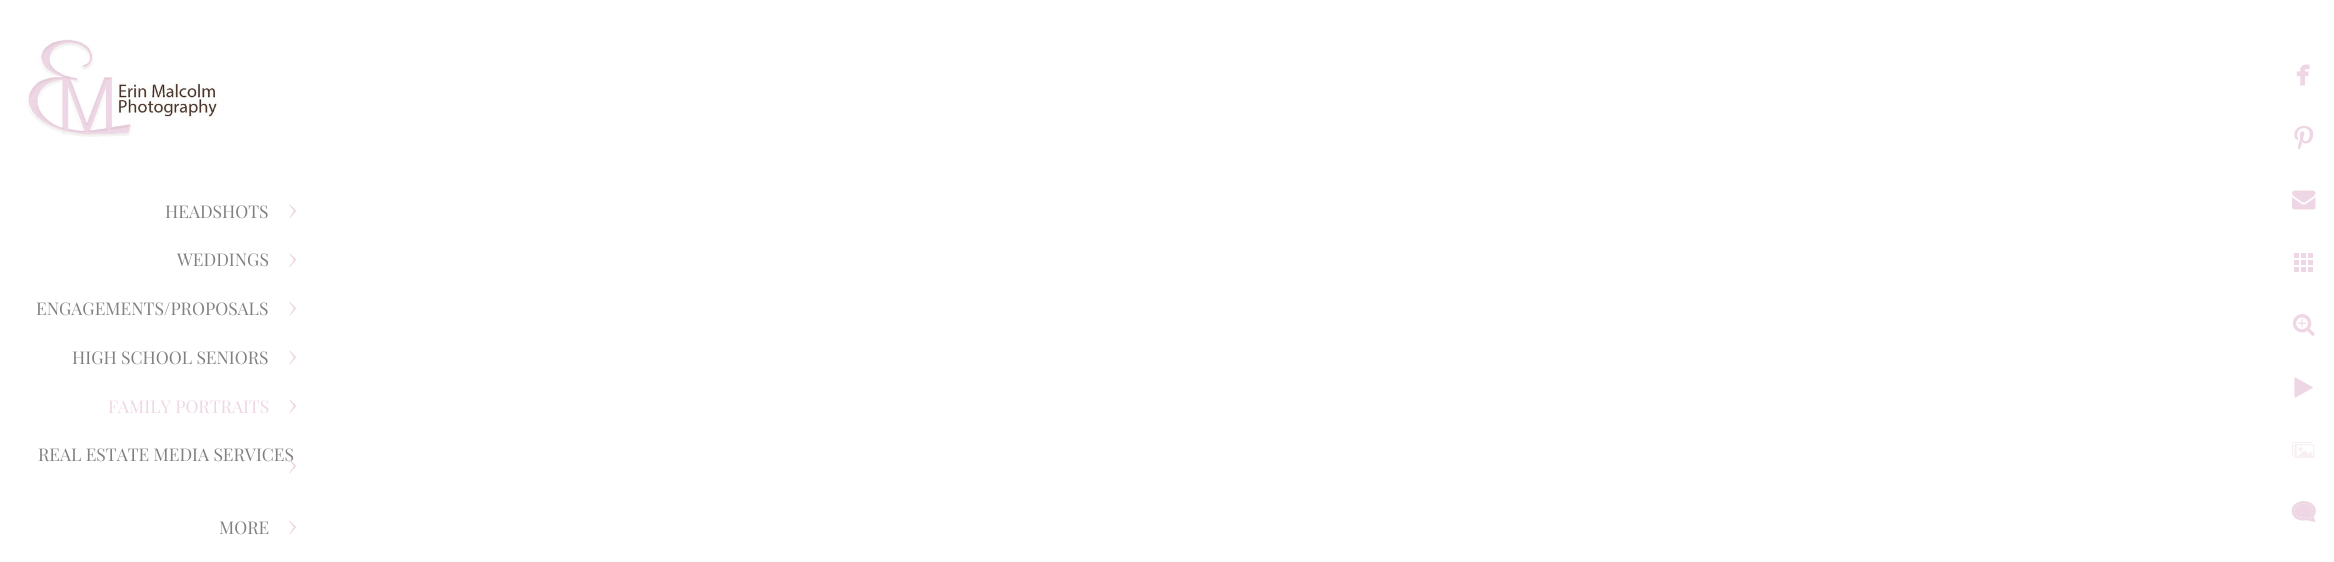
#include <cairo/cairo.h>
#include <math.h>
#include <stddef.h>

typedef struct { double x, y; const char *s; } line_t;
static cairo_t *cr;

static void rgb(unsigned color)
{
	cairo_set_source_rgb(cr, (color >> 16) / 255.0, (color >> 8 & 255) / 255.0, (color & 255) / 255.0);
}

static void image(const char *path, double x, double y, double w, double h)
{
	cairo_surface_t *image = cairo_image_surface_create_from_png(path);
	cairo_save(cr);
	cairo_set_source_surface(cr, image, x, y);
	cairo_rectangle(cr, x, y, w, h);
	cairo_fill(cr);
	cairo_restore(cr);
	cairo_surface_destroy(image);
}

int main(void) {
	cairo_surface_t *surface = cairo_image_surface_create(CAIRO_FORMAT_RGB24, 2334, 562);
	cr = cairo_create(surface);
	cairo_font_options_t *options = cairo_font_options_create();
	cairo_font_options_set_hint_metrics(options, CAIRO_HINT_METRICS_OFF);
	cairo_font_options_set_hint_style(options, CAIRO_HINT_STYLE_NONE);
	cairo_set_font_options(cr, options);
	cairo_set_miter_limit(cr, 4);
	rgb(0xffffff);
	cairo_paint(cr);
	image("img/1.png", 26, 39, 193, 98);
	image("img/2.png", 289, 204, 7, 15);
	image("img/3.png", 289, 253, 7, 14);
	image("img/4.png", 289, 301, 7, 15);
	image("img/5.png", 289, 350, 7, 15);
	image("img/2.png", 289, 399, 7, 15);
	image("img/5.png", 289, 520, 7, 15);
	image("img/7.png", 2296, 64, 14, 22);
	image("img/8.png", 2294, 125, 20, 25);
	image("img/9.png", 2292, 190, 24, 20);
	image("img/10.png", 2294, 253, 19, 19);
	image("img/11.png", 2292, 314, 23, 22);
	image("img/12.png", 2294, 377, 19, 21);
	image("img/13.png", 2292, 442, 23, 16);
	image("img/14.png", 2291, 501, 25, 21);
	cairo_select_font_face(cr, "Playfair Display", CAIRO_FONT_SLANT_NORMAL, CAIRO_FONT_WEIGHT_NORMAL);
	cairo_set_font_size(cr, 17.5);
	rgb(0x808080);
	{
		static const line_t items[] = {
			{165, 218, "HEADSHOTS"},
			{177, 266, "WEDDINGS"},
			{36, 315, "ENGAGEMENTS/PROPOSALS"},
			{72, 364, "HIGH SCHOOL SENIORS"},
		};
		for (size_t i = 0; i < sizeof items / sizeof *items; i++) {
			cairo_move_to(cr, items[i].x, items[i].y);
			cairo_show_text(cr, items[i].s);
		}
	}
	rgb(0xeed6e5);
	cairo_move_to(cr, 108, 413);
	cairo_show_text(cr, "FAMILY PORTRAITS");
	rgb(0x808080);
	cairo_move_to(cr, 38, 461);
	cairo_show_text(cr, "REAL ESTATE MEDIA SERVICES");
	image("img/6.png", 289, 459, 7, 15);
	cairo_move_to(cr, 219, 534);
	cairo_show_text(cr, "MORE");
	cairo_surface_write_to_png(surface, "page.png");
	cairo_font_options_destroy(options);
	cairo_destroy(cr);
	cairo_surface_destroy(surface);
	return 0;
}
